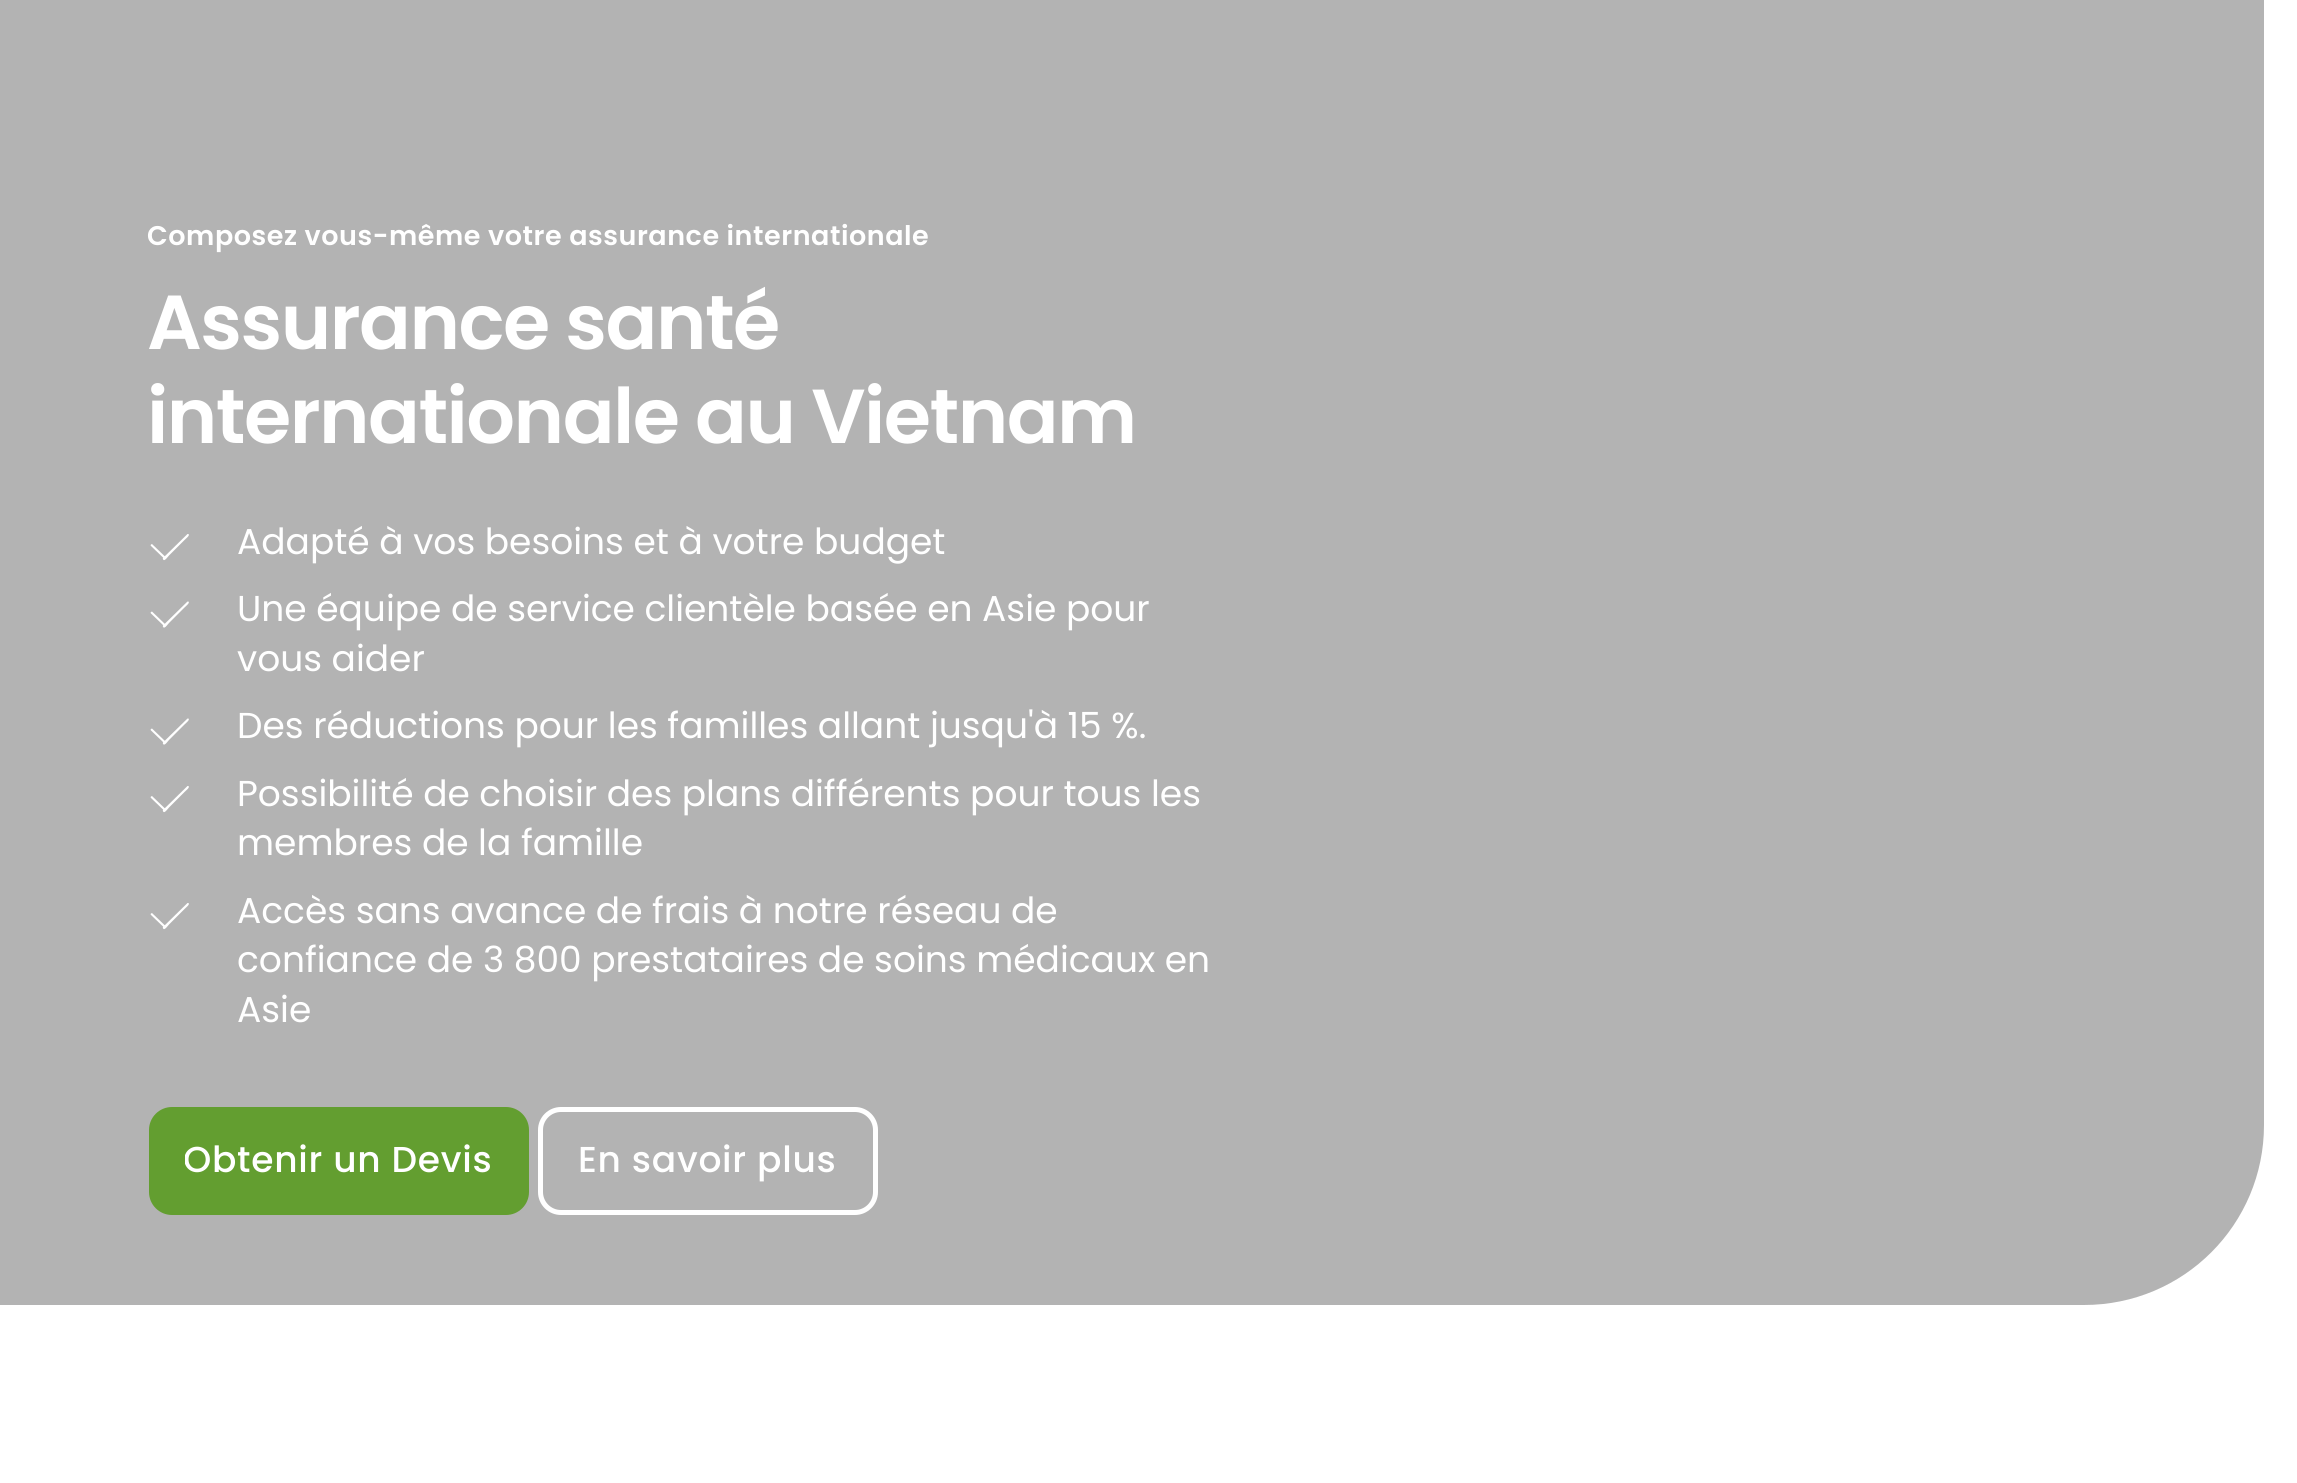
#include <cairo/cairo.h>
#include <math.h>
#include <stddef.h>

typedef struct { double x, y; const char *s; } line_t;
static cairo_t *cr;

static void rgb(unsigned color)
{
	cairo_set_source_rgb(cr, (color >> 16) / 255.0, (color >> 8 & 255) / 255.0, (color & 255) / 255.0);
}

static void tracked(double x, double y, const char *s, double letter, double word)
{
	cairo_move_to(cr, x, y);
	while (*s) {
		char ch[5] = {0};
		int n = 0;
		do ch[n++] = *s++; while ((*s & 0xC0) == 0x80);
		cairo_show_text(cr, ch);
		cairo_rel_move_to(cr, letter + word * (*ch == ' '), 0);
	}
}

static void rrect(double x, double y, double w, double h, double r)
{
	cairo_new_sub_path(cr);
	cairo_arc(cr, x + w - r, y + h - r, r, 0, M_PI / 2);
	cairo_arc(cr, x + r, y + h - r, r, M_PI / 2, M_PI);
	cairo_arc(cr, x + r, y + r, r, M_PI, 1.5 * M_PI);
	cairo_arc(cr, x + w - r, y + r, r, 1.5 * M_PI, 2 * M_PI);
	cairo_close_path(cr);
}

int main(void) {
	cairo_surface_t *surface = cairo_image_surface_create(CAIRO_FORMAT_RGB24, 2297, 1483);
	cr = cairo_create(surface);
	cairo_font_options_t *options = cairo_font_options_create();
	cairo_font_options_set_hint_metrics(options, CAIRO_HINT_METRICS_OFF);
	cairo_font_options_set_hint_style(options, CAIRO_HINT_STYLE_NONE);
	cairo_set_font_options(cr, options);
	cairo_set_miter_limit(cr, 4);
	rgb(0xffffff);
	cairo_paint(cr);
	rgb(0xb3b3b3);
	cairo_new_path(cr);
	cairo_move_to(cr, 0, 0);
	cairo_line_to(cr, 2264, 0);
	cairo_line_to(cr, 2264, 1125);
	cairo_curve_to(cr, 2264, 1224.5, 2183.5, 1305, 2084, 1305);
	cairo_line_to(cr, 0, 1305);
	cairo_close_path(cr);
	cairo_fill(cr);
	rgb(0xffffff);
	cairo_new_path(cr);
	cairo_move_to(cr, 152.5, 544.5);
	cairo_line_to(cr, 165.5, 557);
	cairo_curve_to(cr, 166, 557.5, 166, 558.5, 165.5, 558.5);
	cairo_curve_to(cr, 165, 559, 164.5, 559, 164, 558.5);
	cairo_line_to(cr, 151, 546);
	cairo_curve_to(cr, 150.5, 545.5, 150.5, 545, 151, 544.5);
	cairo_curve_to(cr, 151.5, 544, 152.5, 544, 152.5, 544.5);
	cairo_close_path(cr);
	cairo_fill(cr);
	cairo_new_path(cr);
	cairo_move_to(cr, 163, 558);
	cairo_line_to(cr, 187.5, 534);
	cairo_line_to(cr, 188.5, 534);
	cairo_curve_to(cr, 190, 535.5, 186.5, 538, 184.5, 540);
	cairo_line_to(cr, 169, 555.5);
	cairo_curve_to(cr, 168, 556.5, 165, 561, 163.5, 560);
	cairo_curve_to(cr, 163, 559.5, 162.5, 558.5, 163, 558);
	cairo_close_path(cr);
	cairo_fill(cr);
	cairo_new_path(cr);
	cairo_move_to(cr, 152.5, 612);
	cairo_line_to(cr, 165.5, 624.5);
	cairo_curve_to(cr, 166, 625, 166, 626, 165.5, 626);
	cairo_curve_to(cr, 165, 626.5, 164.5, 626.5, 164, 626);
	cairo_line_to(cr, 151, 613.5);
	cairo_curve_to(cr, 150.5, 613, 150.5, 612.5, 151, 612);
	cairo_curve_to(cr, 151.5, 611.5, 152.5, 611.5, 152.5, 612);
	cairo_close_path(cr);
	cairo_fill(cr);
	cairo_new_path(cr);
	cairo_move_to(cr, 163, 625.5);
	cairo_line_to(cr, 187.5, 601.5);
	cairo_line_to(cr, 188.5, 601.5);
	cairo_curve_to(cr, 190, 603, 186.5, 605.5, 184.5, 607.5);
	cairo_line_to(cr, 169, 623);
	cairo_curve_to(cr, 168, 624, 165, 628.5, 163.5, 627.5);
	cairo_curve_to(cr, 163, 627, 162.5, 626, 163, 625.5);
	cairo_close_path(cr);
	cairo_fill(cr);
	cairo_new_path(cr);
	cairo_move_to(cr, 152.5, 729);
	cairo_line_to(cr, 165.5, 741.5);
	cairo_curve_to(cr, 166, 742, 166, 743, 165.5, 743);
	cairo_curve_to(cr, 165, 743.5, 164.5, 743.5, 164, 743);
	cairo_line_to(cr, 151, 730.5);
	cairo_curve_to(cr, 150.5, 730, 150.5, 729.5, 151, 729);
	cairo_curve_to(cr, 151.5, 728.5, 152.5, 728.5, 152.5, 729);
	cairo_close_path(cr);
	cairo_fill(cr);
	cairo_new_path(cr);
	cairo_move_to(cr, 163, 742.5);
	cairo_line_to(cr, 187.5, 718.5);
	cairo_line_to(cr, 188.5, 718.5);
	cairo_curve_to(cr, 190, 720, 186.5, 722.5, 184.5, 724.5);
	cairo_line_to(cr, 169, 740);
	cairo_curve_to(cr, 168, 741, 165, 745.5, 163.5, 744.5);
	cairo_curve_to(cr, 163, 744, 162.5, 743, 163, 742.5);
	cairo_close_path(cr);
	cairo_fill(cr);
	cairo_new_path(cr);
	cairo_move_to(cr, 152.5, 796.5);
	cairo_line_to(cr, 165.5, 809);
	cairo_curve_to(cr, 166, 809.5, 166, 810.5, 165.5, 810.5);
	cairo_curve_to(cr, 165, 811, 164.5, 811, 164, 810.5);
	cairo_line_to(cr, 151, 798);
	cairo_curve_to(cr, 150.5, 797.5, 150.5, 797, 151, 796.5);
	cairo_curve_to(cr, 151.5, 796, 152.5, 796, 152.5, 796.5);
	cairo_close_path(cr);
	cairo_fill(cr);
	cairo_new_path(cr);
	cairo_move_to(cr, 163, 810);
	cairo_line_to(cr, 187.5, 786);
	cairo_line_to(cr, 188.5, 786);
	cairo_curve_to(cr, 190, 787.5, 186.5, 790, 184.5, 792);
	cairo_line_to(cr, 169, 807.5);
	cairo_curve_to(cr, 168, 808.5, 165, 813, 163.5, 812);
	cairo_curve_to(cr, 163, 811.5, 162.5, 810.5, 163, 810);
	cairo_close_path(cr);
	cairo_fill(cr);
	cairo_new_path(cr);
	cairo_move_to(cr, 152.5, 913.5);
	cairo_line_to(cr, 165.5, 926);
	cairo_curve_to(cr, 166, 926.5, 166, 927.5, 165.5, 927.5);
	cairo_curve_to(cr, 165, 928, 164.5, 928, 164, 927.5);
	cairo_line_to(cr, 151, 915);
	cairo_curve_to(cr, 150.5, 914.5, 150.5, 914, 151, 913.5);
	cairo_curve_to(cr, 151.5, 913, 152.5, 913, 152.5, 913.5);
	cairo_close_path(cr);
	cairo_fill(cr);
	cairo_new_path(cr);
	cairo_move_to(cr, 163, 927);
	cairo_line_to(cr, 187.5, 903);
	cairo_line_to(cr, 188.5, 903);
	cairo_curve_to(cr, 190, 904.5, 186.5, 907, 184.5, 909);
	cairo_line_to(cr, 169, 924.5);
	cairo_curve_to(cr, 168, 925.5, 165, 930, 163.5, 929);
	cairo_curve_to(cr, 163, 928.5, 162.5, 927.5, 163, 927);
	cairo_close_path(cr);
	cairo_fill(cr);
	rgb(0x639e30);
	rrect(149, 1107, 380, 108, 23);
	cairo_fill(cr);
	rrect(540.5, 1109.5, 335, 103, 20.5);
	rgb(0xffffff);
	cairo_set_line_width(cr, 5);
	cairo_stroke(cr);
	cairo_select_font_face(cr, "Poppins SemiBold", CAIRO_FONT_SLANT_NORMAL, CAIRO_FONT_WEIGHT_NORMAL);
	cairo_set_font_size(cr, 27);
	tracked(147, 245, "Composez vous-même votre assurance internationale", 0.55, 0);
	cairo_set_font_size(cr, 76.5);
	tracked(147, 349, "Assurance santé", -1.5, 0);
	tracked(147, 443, "internationale au Vietnam", -1.5, 0);
	cairo_select_font_face(cr, "Poppins", CAIRO_FONT_SLANT_NORMAL, CAIRO_FONT_WEIGHT_NORMAL);
	cairo_set_font_size(cr, 36);
	{
		static const line_t items[] = {
			{237, 554, "Adapté à vos besoins et à votre budget"},
			{237, 621, "Une équipe de service clientèle basée en Asie pour"},
			{237, 671, "vous aider"},
			{237, 738, "Des réductions pour les familles allant jusqu'à 15 %."},
			{237, 806, "Possibilité de choisir des plans différents pour tous les"},
			{237, 855, "membres de la famille"},
			{237, 923, "Accès sans avance de frais à notre réseau de"},
			{237, 972, "confiance de 3 800 prestataires de soins médicaux en"},
			{237, 1022, "Asie"},
		};
		for (size_t i = 0; i < sizeof items / sizeof *items; i++) {
			cairo_move_to(cr, items[i].x, items[i].y);
			cairo_show_text(cr, items[i].s);
		}
	}
	cairo_save(cr);
	cairo_rectangle(cr, 185, 1136, 308, 50);
	cairo_clip(cr);
	cairo_select_font_face(cr, "Poppins Medium", CAIRO_FONT_SLANT_NORMAL, CAIRO_FONT_WEIGHT_NORMAL);
	tracked(183, 1172, "Obtenir un Devis", 0.75, 0);
	cairo_restore(cr);
	cairo_select_font_face(cr, "Poppins Medium", CAIRO_FONT_SLANT_NORMAL, CAIRO_FONT_WEIGHT_NORMAL);
	tracked(578, 1172, "En savoir plus", 0.75, 0);
	cairo_surface_write_to_png(surface, "page.png");
	cairo_font_options_destroy(options);
	cairo_destroy(cr);
	cairo_surface_destroy(surface);
	return 0;
}
